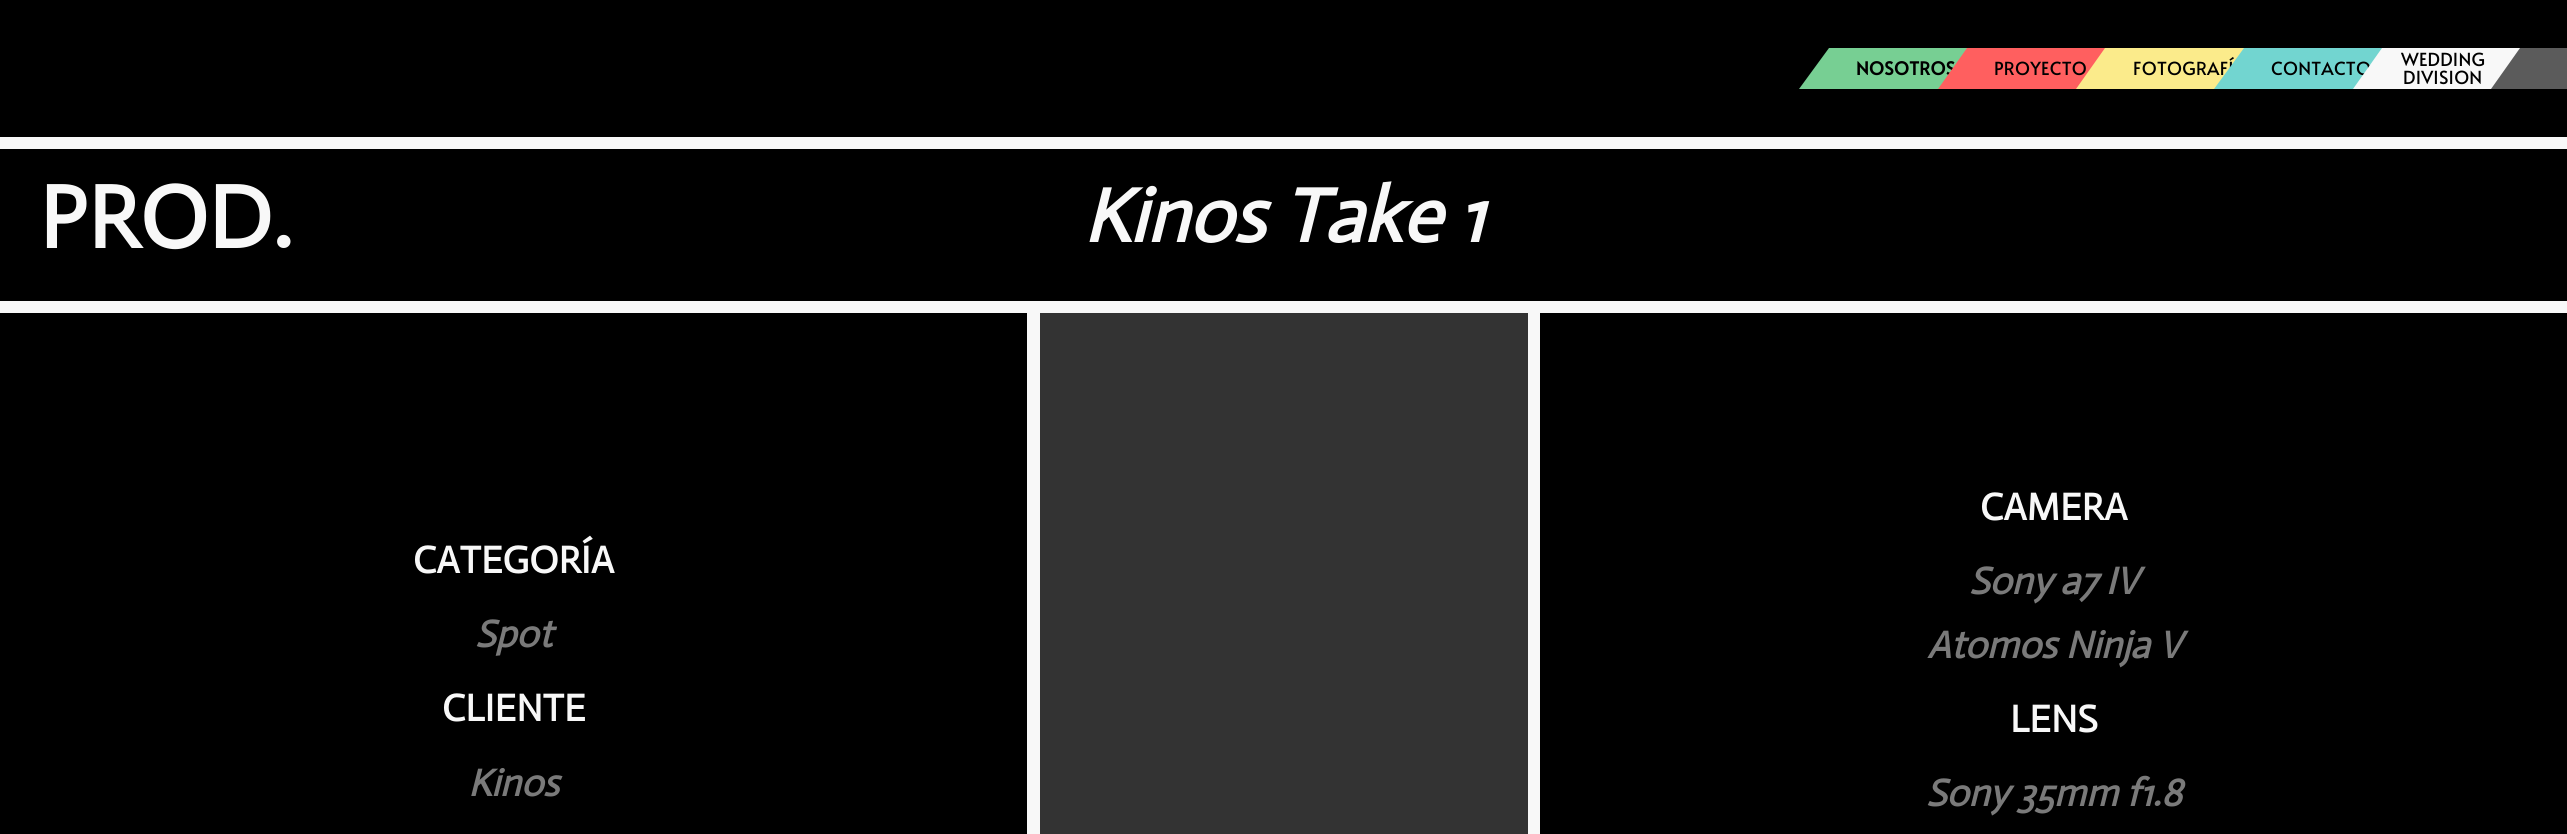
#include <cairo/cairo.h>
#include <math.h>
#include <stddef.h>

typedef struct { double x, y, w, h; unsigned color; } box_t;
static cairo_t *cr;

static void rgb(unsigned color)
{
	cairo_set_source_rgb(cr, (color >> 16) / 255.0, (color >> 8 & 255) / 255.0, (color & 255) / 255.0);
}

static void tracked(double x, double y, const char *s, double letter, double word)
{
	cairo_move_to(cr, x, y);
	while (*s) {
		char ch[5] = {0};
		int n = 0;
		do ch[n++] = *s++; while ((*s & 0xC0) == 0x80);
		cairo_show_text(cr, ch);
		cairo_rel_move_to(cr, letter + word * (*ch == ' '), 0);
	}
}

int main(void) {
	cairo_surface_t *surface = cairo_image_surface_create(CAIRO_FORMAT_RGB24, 2567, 834);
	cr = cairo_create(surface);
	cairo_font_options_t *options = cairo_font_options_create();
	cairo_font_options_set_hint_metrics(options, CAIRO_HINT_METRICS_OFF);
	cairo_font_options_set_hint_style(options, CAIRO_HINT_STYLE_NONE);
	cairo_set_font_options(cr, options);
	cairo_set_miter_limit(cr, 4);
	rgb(0x000000);
	cairo_paint(cr);
	rgb(0x77cf93);
	cairo_new_path(cr);
	cairo_move_to(cr, 1829, 48);
	cairo_line_to(cr, 1970, 48);
	cairo_line_to(cr, 1941, 89);
	cairo_line_to(cr, 1799, 89);
	cairo_close_path(cr);
	cairo_fill(cr);
	{
		static const box_t items[] = {
			{0, 137, 2567, 12, 0xf8f8f8},
			{0, 301, 2567, 12, 0xf8f8f8},
			{1027, 313, 513, 521, 0xf8f8f8},
			{1040, 313, 488, 521, 0x333333},
		};
		for (size_t i = 0; i < sizeof items / sizeof *items; i++) {
			rgb(items[i].color);
			cairo_rectangle(cr, items[i].x, items[i].y, items[i].w, items[i].h);
			cairo_fill(cr);
		}
	}
	cairo_select_font_face(cr, "Alata", CAIRO_FONT_SLANT_NORMAL, CAIRO_FONT_WEIGHT_BOLD);
	cairo_set_font_size(cr, 18);
	rgb(0x000000);
	tracked(1856, 75, "NOSOTROS", 0.25, 0);
	rgb(0xff5f5f);
	cairo_new_path(cr);
	cairo_move_to(cr, 1967, 48);
	cairo_line_to(cr, 2109, 48);
	cairo_line_to(cr, 2080, 89);
	cairo_line_to(cr, 1938, 89);
	cairo_close_path(cr);
	cairo_fill(cr);
	cairo_select_font_face(cr, "Alata", CAIRO_FONT_SLANT_NORMAL, CAIRO_FONT_WEIGHT_NORMAL);
	rgb(0x000000);
	tracked(1994, 75, "PROYECTO", 0.25, 0);
	rgb(0xfbeb8b);
	cairo_new_path(cr);
	cairo_move_to(cr, 2105, 48);
	cairo_line_to(cr, 2247, 48);
	cairo_line_to(cr, 2218, 89);
	cairo_line_to(cr, 2076, 89);
	cairo_close_path(cr);
	cairo_fill(cr);
	rgb(0x000000);
	tracked(2133, 75, "FOTOGRAFÍ", 0.25, 0);
	rgb(0x72d5d0);
	cairo_new_path(cr);
	cairo_move_to(cr, 2244, 48);
	cairo_line_to(cr, 2386, 48);
	cairo_line_to(cr, 2356, 89);
	cairo_line_to(cr, 2214, 89);
	cairo_close_path(cr);
	cairo_fill(cr);
	rgb(0x000000);
	tracked(2271, 75, "CONTACTO", 0.25, 0);
	rgb(0xf8f8f8);
	cairo_new_path(cr);
	cairo_move_to(cr, 2382, 48);
	cairo_line_to(cr, 2524, 48);
	cairo_line_to(cr, 2495, 89);
	cairo_line_to(cr, 2353, 89);
	cairo_close_path(cr);
	cairo_fill(cr);
	rgb(0x000000);
	tracked(2401, 66, "WEDDING", 0.25, 0);
	tracked(2403, 84, "DIVISION", 0.25, 0);
	rgb(0x5b5b5b);
	cairo_new_path(cr);
	cairo_move_to(cr, 2520, 48);
	cairo_line_to(cr, 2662, 48);
	cairo_line_to(cr, 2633, 89);
	cairo_line_to(cr, 2491, 89);
	cairo_close_path(cr);
	cairo_fill(cr);
	cairo_select_font_face(cr, "Actor", CAIRO_FONT_SLANT_NORMAL, CAIRO_FONT_WEIGHT_BOLD);
	cairo_set_font_size(cr, 90);
	rgb(0xf8f8f8);
	cairo_move_to(cr, 39, 248);
	cairo_show_text(cr, "PROD.");
	cairo_select_font_face(cr, "Actor", CAIRO_FONT_SLANT_ITALIC, CAIRO_FONT_WEIGHT_BOLD);
	cairo_set_font_size(cr, 77);
	cairo_move_to(cr, 1083, 242);
	cairo_show_text(cr, "Kinos Take 1");
	cairo_select_font_face(cr, "Actor", CAIRO_FONT_SLANT_NORMAL, CAIRO_FONT_WEIGHT_BOLD);
	cairo_set_font_size(cr, 38.5);
	cairo_move_to(cr, 413, 573);
	cairo_show_text(cr, "CATEGORÍA");
	cairo_select_font_face(cr, "Actor", CAIRO_FONT_SLANT_ITALIC, CAIRO_FONT_WEIGHT_BOLD);
	rgb(0x7a7a7a);
	cairo_move_to(cr, 475, 647);
	cairo_show_text(cr, "Spot");
	cairo_select_font_face(cr, "Actor", CAIRO_FONT_SLANT_NORMAL, CAIRO_FONT_WEIGHT_BOLD);
	rgb(0xf8f8f8);
	cairo_move_to(cr, 442, 721);
	cairo_show_text(cr, "CLIENTE");
	cairo_select_font_face(cr, "Actor", CAIRO_FONT_SLANT_ITALIC, CAIRO_FONT_WEIGHT_BOLD);
	rgb(0x7a7a7a);
	cairo_move_to(cr, 468, 796);
	cairo_show_text(cr, "Kinos");
	cairo_select_font_face(cr, "Actor", CAIRO_FONT_SLANT_NORMAL, CAIRO_FONT_WEIGHT_BOLD);
	rgb(0xf8f8f8);
	cairo_move_to(cr, 1980, 520);
	cairo_show_text(cr, "CAMERA");
	cairo_select_font_face(cr, "Actor", CAIRO_FONT_SLANT_ITALIC, CAIRO_FONT_WEIGHT_BOLD);
	rgb(0x7a7a7a);
	cairo_move_to(cr, 1969, 594);
	cairo_show_text(cr, "Sony a7 IV");
	cairo_move_to(cr, 1927, 658);
	cairo_show_text(cr, "Atomos Ninja V");
	cairo_select_font_face(cr, "Actor", CAIRO_FONT_SLANT_NORMAL, CAIRO_FONT_WEIGHT_BOLD);
	rgb(0xf8f8f8);
	cairo_move_to(cr, 2010, 732);
	cairo_show_text(cr, "LENS");
	cairo_select_font_face(cr, "Actor", CAIRO_FONT_SLANT_ITALIC, CAIRO_FONT_WEIGHT_BOLD);
	rgb(0x7a7a7a);
	cairo_move_to(cr, 1926, 806);
	cairo_show_text(cr, "Sony 35mm f1.8");
	cairo_surface_write_to_png(surface, "page.png");
	cairo_font_options_destroy(options);
	cairo_destroy(cr);
	cairo_surface_destroy(surface);
	return 0;
}
